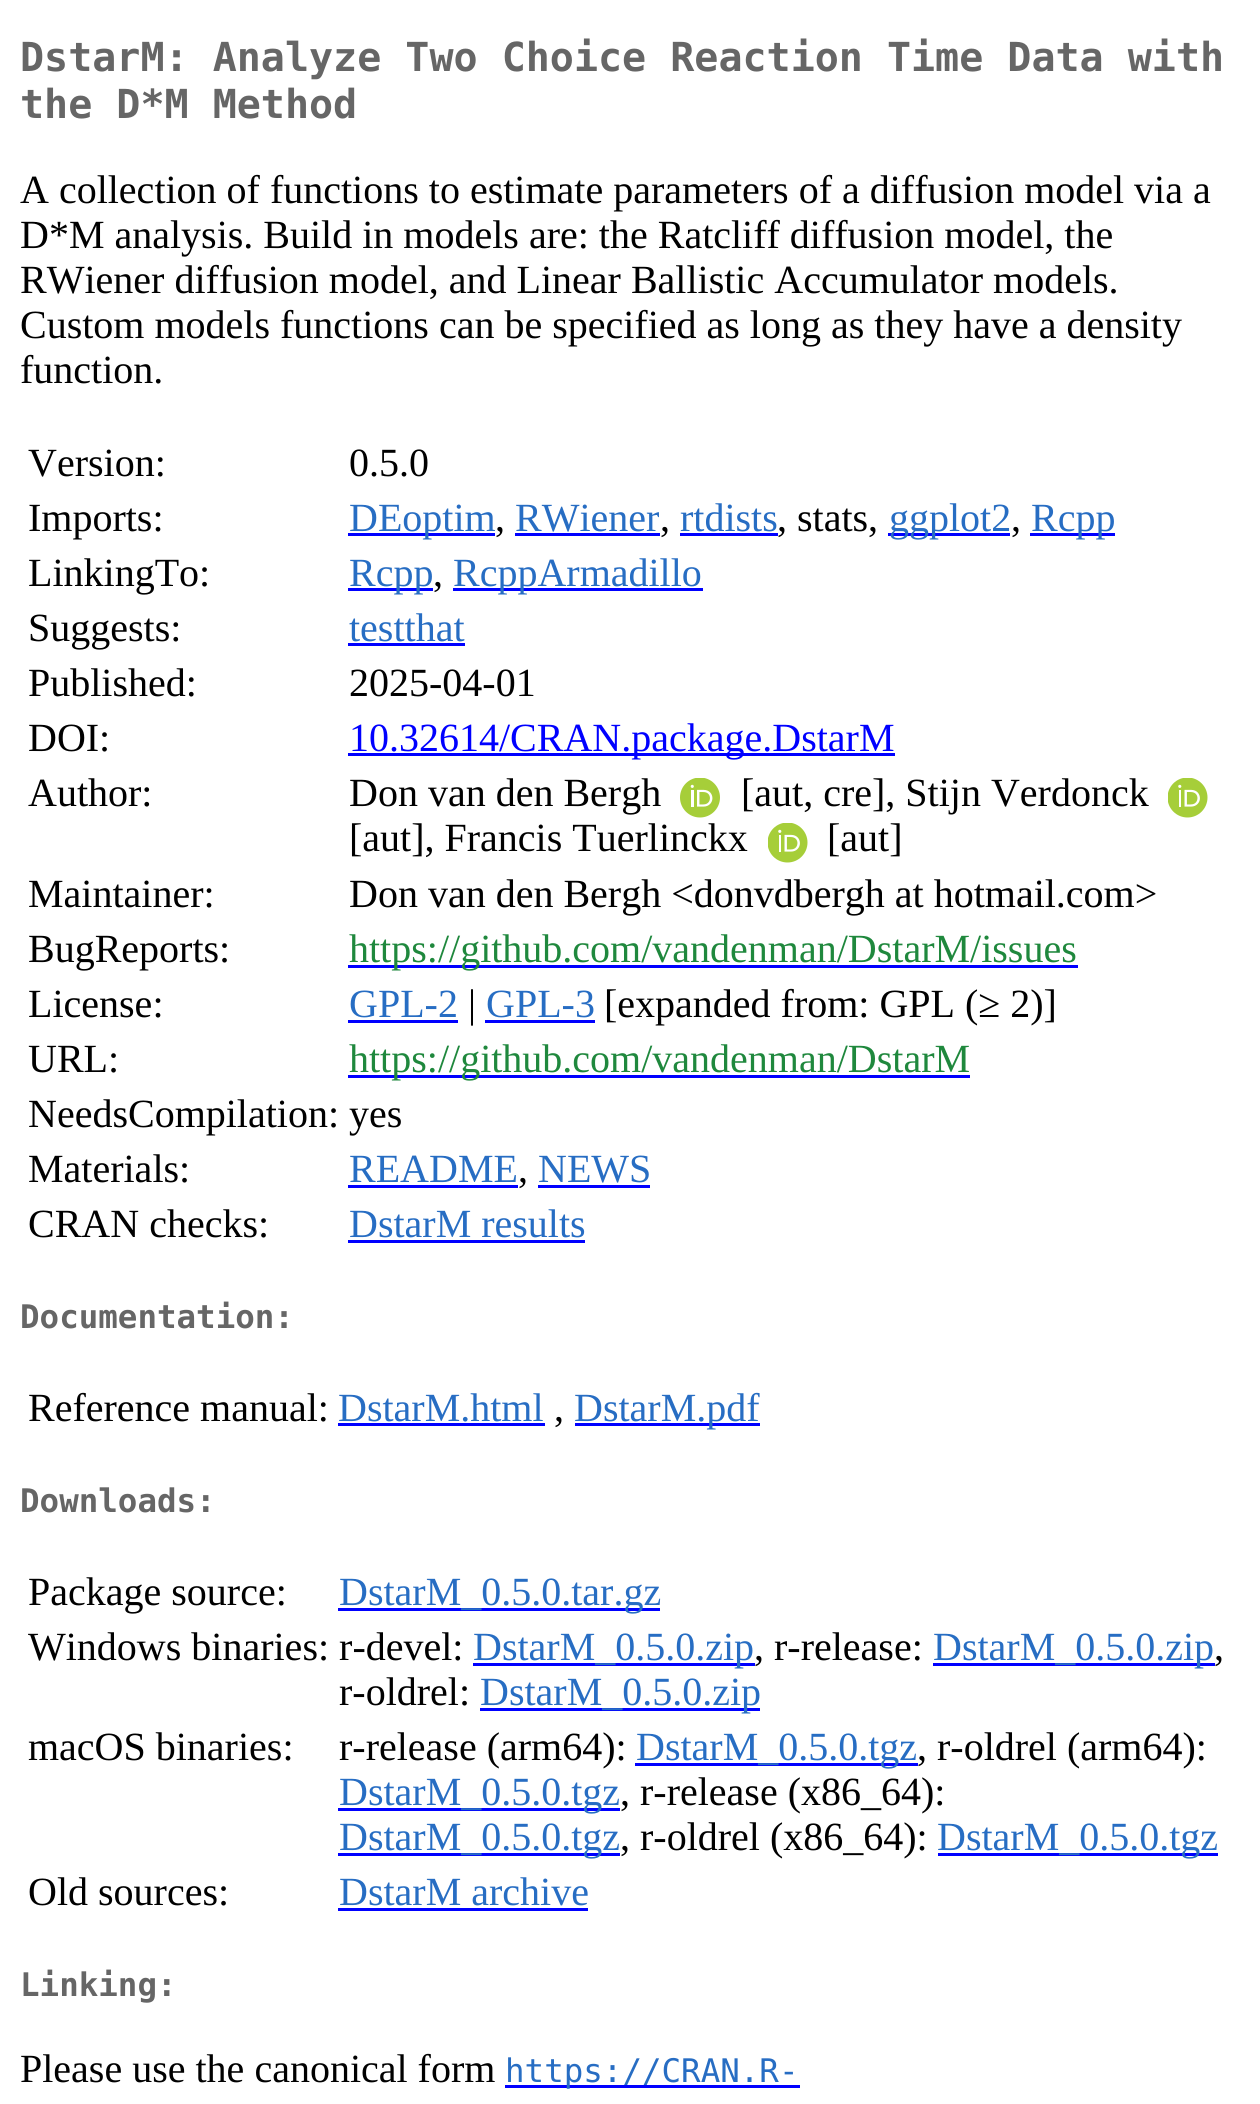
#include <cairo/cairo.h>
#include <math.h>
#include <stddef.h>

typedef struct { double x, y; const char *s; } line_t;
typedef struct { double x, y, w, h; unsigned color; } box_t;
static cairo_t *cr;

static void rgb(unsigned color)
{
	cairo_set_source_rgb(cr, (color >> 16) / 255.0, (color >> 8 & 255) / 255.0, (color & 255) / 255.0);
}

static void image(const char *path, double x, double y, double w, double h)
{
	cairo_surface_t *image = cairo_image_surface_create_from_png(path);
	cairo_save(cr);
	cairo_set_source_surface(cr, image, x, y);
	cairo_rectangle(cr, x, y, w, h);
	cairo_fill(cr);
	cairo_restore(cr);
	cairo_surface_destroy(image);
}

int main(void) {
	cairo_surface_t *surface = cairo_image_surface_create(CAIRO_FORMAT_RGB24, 1260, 2104);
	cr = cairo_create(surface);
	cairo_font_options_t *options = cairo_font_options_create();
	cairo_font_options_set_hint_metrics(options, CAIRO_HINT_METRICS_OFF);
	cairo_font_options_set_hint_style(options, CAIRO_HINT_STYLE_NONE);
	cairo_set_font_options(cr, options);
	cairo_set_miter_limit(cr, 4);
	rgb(0xffffff);
	cairo_paint(cr);
	{
		static const box_t items[] = {
			{348, 533, 147, 3, 0x0000ff},
			{515, 533, 145, 3, 0x0000ff},
			{680, 533, 98, 3, 0x0000ff},
			{888, 533, 122, 3, 0x0000ff},
			{1030, 533, 85, 3, 0x0000ff},
			{348, 588, 85, 3, 0x0000ff},
			{453, 588, 250, 3, 0x0000ff},
			{348, 643, 117, 3, 0x0000ff},
			{348, 753, 547, 3, 0x0000ff},
		};
		for (size_t i = 0; i < sizeof items / sizeof *items; i++) {
			rgb(items[i].color);
			cairo_rectangle(cr, items[i].x, items[i].y, items[i].w, items[i].h);
			cairo_fill(cr);
		}
	}
	image("img/1.png", 680, 778, 40, 40);
	image("img/2.png", 1168, 778, 40, 40);
	image("img/2.png", 768, 823, 40, 40);
	{
		static const box_t items[] = {
			{348, 965, 730, 3, 0x0000ff},
			{348, 1020, 110, 3, 0x0000ff},
			{485, 1020, 110, 3, 0x0000ff},
			{348, 1075, 622, 3, 0x0000ff},
			{348, 1185, 170, 3, 0x0000ff},
			{538, 1185, 112, 3, 0x0000ff},
			{348, 1240, 237, 3, 0x0000ff},
			{338, 1423, 207, 3, 0x0000ff},
			{575, 1423, 185, 3, 0x0000ff},
			{338, 1608, 322, 3, 0x0000ff},
			{473, 1663, 282, 3, 0x0000ff},
			{933, 1663, 282, 3, 0x0000ff},
			{480, 1708, 280, 3, 0x0000ff},
			{635, 1763, 283, 3, 0x0000ff},
			{338, 1808, 282, 3, 0x0000ff},
			{338, 1853, 282, 3, 0x0000ff},
			{938, 1853, 280, 3, 0x0000ff},
			{338, 1908, 250, 3, 0x0000ff},
			{505, 2085, 295, 3, 0x0000ff},
		};
		for (size_t i = 0; i < sizeof items / sizeof *items; i++) {
			rgb(items[i].color);
			cairo_rectangle(cr, items[i].x, items[i].y, items[i].w, items[i].h);
			cairo_fill(cr);
		}
	}
	cairo_select_font_face(cr, "DejaVu Sans Mono", CAIRO_FONT_SLANT_NORMAL, CAIRO_FONT_WEIGHT_BOLD);
	cairo_set_font_size(cr, 40);
	rgb(0x666666);
	cairo_move_to(cr, 20, 71);
	cairo_show_text(cr, "DstarM: Analyze Two Choice Reaction Time Data with");
	cairo_move_to(cr, 20, 118);
	cairo_show_text(cr, "the D*M Method");
	cairo_select_font_face(cr, "Liberation Serif", CAIRO_FONT_SLANT_NORMAL, CAIRO_FONT_WEIGHT_NORMAL);
	rgb(0x000000);
	{
		static const line_t items[] = {
			{20, 203, "A collection of functions to estimate parameters of a diffusion model via a"},
			{20, 248, "D*M analysis. Build in models are: the Ratcliff diffusion model, the"},
			{20, 293, "RWiener diffusion model, and Linear Ballistic Accumulator models."},
			{20, 338, "Custom models functions can be specified as long as they have a density"},
			{20, 383, "function."},
			{28, 476, "Version:"},
			{349, 476, "0.5.0"},
			{28, 531, "Imports:"},
		};
		for (size_t i = 0; i < sizeof items / sizeof *items; i++) {
			cairo_move_to(cr, items[i].x, items[i].y);
			cairo_show_text(cr, items[i].s);
		}
	}
	rgb(0x276dc3);
	cairo_move_to(cr, 349, 531);
	cairo_show_text(cr, "DEoptim");
	rgb(0x000000);
	cairo_move_to(cr, 495, 531);
	cairo_show_text(cr, ",");
	rgb(0x276dc3);
	cairo_move_to(cr, 515, 531);
	cairo_show_text(cr, "RWiener");
	rgb(0x000000);
	cairo_move_to(cr, 660, 531);
	cairo_show_text(cr, ",");
	rgb(0x276dc3);
	cairo_move_to(cr, 680, 531);
	cairo_show_text(cr, "rtdists");
	rgb(0x000000);
	cairo_move_to(cr, 777, 531);
	cairo_show_text(cr, ", stats,");
	rgb(0x276dc3);
	cairo_move_to(cr, 889, 531);
	cairo_show_text(cr, "ggplot2");
	rgb(0x000000);
	cairo_move_to(cr, 1011, 531);
	cairo_show_text(cr, ",");
	rgb(0x276dc3);
	cairo_move_to(cr, 1031, 531);
	cairo_show_text(cr, "Rcpp");
	rgb(0x000000);
	cairo_move_to(cr, 28, 586);
	cairo_show_text(cr, "LinkingTo:");
	rgb(0x276dc3);
	cairo_move_to(cr, 349, 586);
	cairo_show_text(cr, "Rcpp");
	rgb(0x000000);
	cairo_move_to(cr, 433, 586);
	cairo_show_text(cr, ",");
	rgb(0x276dc3);
	cairo_move_to(cr, 453, 586);
	cairo_show_text(cr, "RcppArmadillo");
	rgb(0x000000);
	cairo_move_to(cr, 28, 641);
	cairo_show_text(cr, "Suggests:");
	rgb(0x276dc3);
	cairo_move_to(cr, 349, 641);
	cairo_show_text(cr, "testthat");
	rgb(0x000000);
	{
		static const line_t items[] = {
			{28, 696, "Published:"},
			{349, 696, "2025-04-01"},
			{28, 751, "DOI:"},
		};
		for (size_t i = 0; i < sizeof items / sizeof *items; i++) {
			cairo_move_to(cr, items[i].x, items[i].y);
			cairo_show_text(cr, items[i].s);
		}
	}
	rgb(0x0000ff);
	cairo_move_to(cr, 349, 751);
	cairo_show_text(cr, "10.32614/CRAN.package.DstarM");
	rgb(0x000000);
	{
		static const line_t items[] = {
			{28, 806, "Author:"},
			{349, 806, "Don van den Bergh"},
			{741, 806, "[aut, cre], Stijn Verdonck"},
			{349, 851, "[aut], Francis Tuerlinckx"},
			{827, 851, "[aut]"},
			{28, 907, "Maintainer:"},
			{349, 907, "Don van den Bergh <donvdbergh at hotmail.com>"},
			{28, 962, "BugReports:"},
		};
		for (size_t i = 0; i < sizeof items / sizeof *items; i++) {
			cairo_move_to(cr, items[i].x, items[i].y);
			cairo_show_text(cr, items[i].s);
		}
	}
	rgb(0x1f883d);
	cairo_move_to(cr, 349, 962);
	cairo_show_text(cr, "https://github.com/vandenman/DstarM/issues");
	rgb(0x000000);
	cairo_move_to(cr, 28, 1017);
	cairo_show_text(cr, "License:");
	rgb(0x276dc3);
	cairo_move_to(cr, 349, 1017);
	cairo_show_text(cr, "GPL-2");
	rgb(0x000000);
	cairo_move_to(cr, 468, 1017);
	cairo_show_text(cr, "|");
	rgb(0x276dc3);
	cairo_move_to(cr, 486, 1017);
	cairo_show_text(cr, "GPL-3");
	rgb(0x000000);
	cairo_move_to(cr, 604, 1017);
	cairo_show_text(cr, "[expanded from: GPL (≥ 2)]");
	cairo_move_to(cr, 28, 1072);
	cairo_show_text(cr, "URL:");
	rgb(0x1f883d);
	cairo_move_to(cr, 349, 1072);
	cairo_show_text(cr, "https://github.com/vandenman/DstarM");
	rgb(0x000000);
	cairo_move_to(cr, 28, 1127);
	cairo_show_text(cr, "NeedsCompilation: yes");
	cairo_move_to(cr, 28, 1182);
	cairo_show_text(cr, "Materials:");
	rgb(0x276dc3);
	cairo_move_to(cr, 349, 1182);
	cairo_show_text(cr, "README");
	rgb(0x000000);
	cairo_move_to(cr, 518, 1182);
	cairo_show_text(cr, ",");
	rgb(0x276dc3);
	cairo_move_to(cr, 538, 1182);
	cairo_show_text(cr, "NEWS");
	rgb(0x000000);
	cairo_move_to(cr, 28, 1237);
	cairo_show_text(cr, "CRAN checks:");
	rgb(0x276dc3);
	cairo_move_to(cr, 349, 1237);
	cairo_show_text(cr, "DstarM results");
	cairo_select_font_face(cr, "DejaVu Sans Mono", CAIRO_FONT_SLANT_NORMAL, CAIRO_FONT_WEIGHT_BOLD);
	cairo_set_font_size(cr, 32.5);
	rgb(0x666666);
	cairo_move_to(cr, 20, 1328);
	cairo_show_text(cr, "Documentation:");
	cairo_select_font_face(cr, "Liberation Serif", CAIRO_FONT_SLANT_NORMAL, CAIRO_FONT_WEIGHT_NORMAL);
	cairo_set_font_size(cr, 40);
	rgb(0x000000);
	cairo_move_to(cr, 28, 1421);
	cairo_show_text(cr, "Reference manual:");
	rgb(0x276dc3);
	cairo_move_to(cr, 338, 1421);
	cairo_show_text(cr, "DstarM.html");
	rgb(0x000000);
	cairo_move_to(cr, 554, 1421);
	cairo_show_text(cr, ",");
	rgb(0x276dc3);
	cairo_move_to(cr, 574, 1421);
	cairo_show_text(cr, "DstarM.pdf");
	cairo_select_font_face(cr, "DejaVu Sans Mono", CAIRO_FONT_SLANT_NORMAL, CAIRO_FONT_WEIGHT_BOLD);
	cairo_set_font_size(cr, 32.5);
	rgb(0x666666);
	cairo_move_to(cr, 20, 1512);
	cairo_show_text(cr, "Downloads:");
	cairo_select_font_face(cr, "Liberation Serif", CAIRO_FONT_SLANT_NORMAL, CAIRO_FONT_WEIGHT_NORMAL);
	cairo_set_font_size(cr, 40);
	rgb(0x000000);
	cairo_move_to(cr, 28, 1605);
	cairo_show_text(cr, "Package source:");
	rgb(0x276dc3);
	cairo_move_to(cr, 339, 1605);
	cairo_show_text(cr, "DstarM_0.5.0.tar.gz");
	rgb(0x000000);
	cairo_move_to(cr, 28, 1660);
	cairo_show_text(cr, "Windows binaries: r-devel:");
	rgb(0x276dc3);
	cairo_move_to(cr, 473, 1660);
	cairo_show_text(cr, "DstarM_0.5.0.zip");
	rgb(0x000000);
	cairo_move_to(cr, 754, 1660);
	cairo_show_text(cr, ", r-release:");
	rgb(0x276dc3);
	cairo_move_to(cr, 933, 1660);
	cairo_show_text(cr, "DstarM_0.5.0.zip");
	rgb(0x000000);
	cairo_move_to(cr, 1214, 1660);
	cairo_show_text(cr, ",");
	cairo_move_to(cr, 339, 1705);
	cairo_show_text(cr, "r-oldrel:");
	rgb(0x276dc3);
	cairo_move_to(cr, 480, 1705);
	cairo_show_text(cr, "DstarM_0.5.0.zip");
	rgb(0x000000);
	cairo_move_to(cr, 28, 1760);
	cairo_show_text(cr, "macOS binaries:");
	cairo_move_to(cr, 339, 1760);
	cairo_show_text(cr, "r-release (arm64):");
	rgb(0x276dc3);
	cairo_move_to(cr, 636, 1760);
	cairo_show_text(cr, "DstarM_0.5.0.tgz");
	rgb(0x000000);
	cairo_move_to(cr, 917, 1760);
	cairo_show_text(cr, ", r-oldrel (arm64):");
	rgb(0x276dc3);
	cairo_move_to(cr, 339, 1805);
	cairo_show_text(cr, "DstarM_0.5.0.tgz");
	rgb(0x000000);
	cairo_move_to(cr, 620, 1805);
	cairo_show_text(cr, ", r-release (x86_64):");
	rgb(0x276dc3);
	cairo_move_to(cr, 339, 1850);
	cairo_show_text(cr, "DstarM_0.5.0.tgz");
	rgb(0x000000);
	cairo_move_to(cr, 620, 1850);
	cairo_show_text(cr, ", r-oldrel (x86_64):");
	rgb(0x276dc3);
	cairo_move_to(cr, 937, 1850);
	cairo_show_text(cr, "DstarM_0.5.0.tgz");
	rgb(0x000000);
	cairo_move_to(cr, 28, 1905);
	cairo_show_text(cr, "Old sources:");
	rgb(0x276dc3);
	cairo_move_to(cr, 339, 1905);
	cairo_show_text(cr, "DstarM archive");
	cairo_select_font_face(cr, "DejaVu Sans Mono", CAIRO_FONT_SLANT_NORMAL, CAIRO_FONT_WEIGHT_BOLD);
	cairo_set_font_size(cr, 32.5);
	rgb(0x666666);
	cairo_move_to(cr, 20, 1996);
	cairo_show_text(cr, "Linking:");
	cairo_select_font_face(cr, "Liberation Serif", CAIRO_FONT_SLANT_NORMAL, CAIRO_FONT_WEIGHT_NORMAL);
	cairo_set_font_size(cr, 40);
	rgb(0x000000);
	cairo_move_to(cr, 20, 2082);
	cairo_show_text(cr, "Please use the canonical form");
	cairo_select_font_face(cr, "DejaVu Sans Mono", CAIRO_FONT_SLANT_NORMAL, CAIRO_FONT_WEIGHT_NORMAL);
	cairo_set_font_size(cr, 32.5);
	rgb(0x276dc3);
	cairo_move_to(cr, 505, 2082);
	cairo_show_text(cr, "https://CRAN.R-");
	cairo_surface_write_to_png(surface, "page.png");
	cairo_font_options_destroy(options);
	cairo_destroy(cr);
	cairo_surface_destroy(surface);
	return 0;
}
